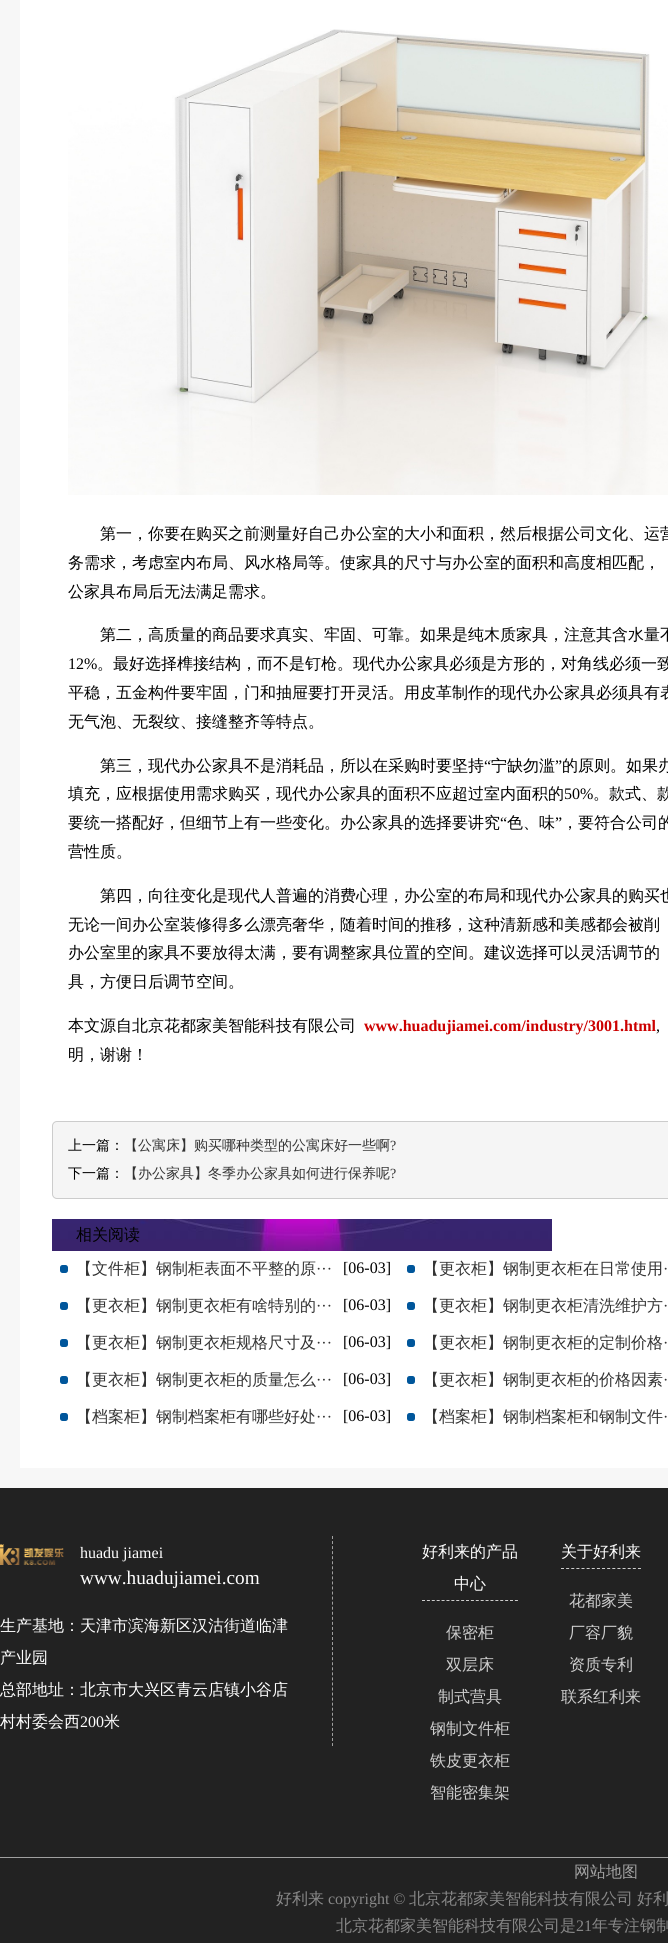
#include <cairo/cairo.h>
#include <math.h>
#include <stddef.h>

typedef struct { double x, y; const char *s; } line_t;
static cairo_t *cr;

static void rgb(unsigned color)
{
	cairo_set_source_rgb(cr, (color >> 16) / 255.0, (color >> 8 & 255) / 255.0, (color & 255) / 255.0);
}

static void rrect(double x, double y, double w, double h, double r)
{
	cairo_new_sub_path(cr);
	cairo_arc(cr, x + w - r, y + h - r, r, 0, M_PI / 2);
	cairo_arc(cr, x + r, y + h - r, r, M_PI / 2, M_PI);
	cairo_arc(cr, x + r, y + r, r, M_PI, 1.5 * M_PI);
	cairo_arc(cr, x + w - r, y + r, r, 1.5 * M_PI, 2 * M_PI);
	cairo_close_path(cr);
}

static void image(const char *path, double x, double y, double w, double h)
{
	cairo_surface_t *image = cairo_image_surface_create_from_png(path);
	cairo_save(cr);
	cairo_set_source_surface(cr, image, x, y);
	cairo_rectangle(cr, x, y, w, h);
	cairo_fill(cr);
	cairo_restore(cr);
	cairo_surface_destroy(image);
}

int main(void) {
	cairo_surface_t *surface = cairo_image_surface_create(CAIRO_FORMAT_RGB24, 668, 1943);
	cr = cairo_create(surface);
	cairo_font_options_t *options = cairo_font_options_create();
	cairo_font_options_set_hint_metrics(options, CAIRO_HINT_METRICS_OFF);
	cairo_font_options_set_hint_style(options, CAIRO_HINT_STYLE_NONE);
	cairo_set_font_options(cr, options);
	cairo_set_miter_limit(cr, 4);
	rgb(0xffffff);
	cairo_paint(cr);
	cairo_rectangle(cr, 10, -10, 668, 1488);
	rgb(0xf7f7f7);
	cairo_set_line_width(cr, 20);
	cairo_stroke(cr);
	image("img/1.png", 68, 29, 600, 466);
	rgb(0xf5f5f5);
	rrect(52.5, 1121.5, 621, 77, 4.5);
	cairo_fill_preserve(cr);
	rgb(0xcccccc);
	cairo_set_line_width(cr, 1);
	cairo_stroke(cr);
	image("img/2.png", 52, 1219, 500, 32);
	rgb(0x00569b);
	rrect(60, 1265, 8, 8, 2.5);
	cairo_fill(cr);
	rrect(407, 1265, 8, 8, 2.5);
	cairo_fill(cr);
	rrect(60, 1302, 8, 8, 2.5);
	cairo_fill(cr);
	rrect(407, 1302, 8, 8, 2.5);
	cairo_fill(cr);
	rrect(60, 1339, 8, 8, 2.5);
	cairo_fill(cr);
	rrect(407, 1339, 8, 8, 2.5);
	cairo_fill(cr);
	rrect(60, 1376, 8, 8, 2.5);
	cairo_fill(cr);
	rrect(407, 1376, 8, 8, 2.5);
	cairo_fill(cr);
	rrect(60, 1413, 8, 8, 2.5);
	cairo_fill(cr);
	rrect(407, 1413, 8, 8, 2.5);
	cairo_fill(cr);
	rgb(0x222222);
	cairo_rectangle(cr, 0, 1488, 668, 455);
	cairo_fill(cr);
	rgb(0xa0a0a0);
	cairo_rectangle(cr, 0, 1857, 668, 1);
	cairo_fill(cr);
	cairo_new_path(cr);
	cairo_move_to(cr, 332.5, 1536);
	cairo_line_to(cr, 332.5, 1746);
	cairo_set_dash(cr, (double[]){3, 2.05}, 2, 0);
	cairo_stroke(cr);
	image("img/3.png", 0, 1544, 64, 21);
	cairo_new_path(cr);
	cairo_move_to(cr, 422, 1600.5);
	cairo_line_to(cr, 518, 1600.5);
	rgb(0xcecece);
	cairo_set_dash(cr, (double[]){3, 1.89}, 2, 0);
	cairo_stroke(cr);
	cairo_new_path(cr);
	cairo_move_to(cr, 561, 1568.5);
	cairo_line_to(cr, 641, 1568.5);
	cairo_set_dash(cr, (double[]){3, 2.13}, 2, 0);
	cairo_stroke(cr);
	cairo_select_font_face(cr, "WenQuanYi Zen Hei Medium", CAIRO_FONT_SLANT_NORMAL, CAIRO_FONT_WEIGHT_NORMAL);
	cairo_set_font_size(cr, 16);
	rgb(0x000000);
	{
		static const line_t items[] = {
			{100, 539, "第一，你要在购买之前测量好自己办公室的大小和面积，然后根据公司文化、运营"},
			{68, 568, "务需求，考虑室内布局、风水格局等。使家具的尺寸与办公室的面积和高度相匹配，"},
			{68, 597, "公家具布局后无法满足需求。"},
			{100, 640, "第二，高质量的商品要求真实、牢固、可靠。如果是纯木质家具，注意其含水量不"},
		};
		for (size_t i = 0; i < sizeof items / sizeof *items; i++) {
			cairo_move_to(cr, items[i].x, items[i].y);
			cairo_show_text(cr, items[i].s);
		}
	}
	cairo_select_font_face(cr, "Liberation Serif", CAIRO_FONT_SLANT_NORMAL, CAIRO_FONT_WEIGHT_NORMAL);
	cairo_move_to(cr, 68, 669);
	cairo_show_text(cr, "12%");
	cairo_select_font_face(cr, "WenQuanYi Zen Hei Medium", CAIRO_FONT_SLANT_NORMAL, CAIRO_FONT_WEIGHT_NORMAL);
	{
		static const line_t items[] = {
			{97, 669, "。最好选择榫接结构，而不是钉枪。现代办公家具必须是方形的，对角线必须一致"},
			{68, 698, "平稳，五金构件要牢固，门和抽屉要打开灵活。用皮革制作的现代办公家具必须具有表"},
			{68, 727, "无气泡、无裂纹、接缝整齐等特点。"},
			{100, 771, "第三，现代办公家具不是消耗品，所以在采购时要坚持"},
		};
		for (size_t i = 0; i < sizeof items / sizeof *items; i++) {
			cairo_move_to(cr, items[i].x, items[i].y);
			cairo_show_text(cr, items[i].s);
		}
	}
	cairo_select_font_face(cr, "Liberation Serif", CAIRO_FONT_SLANT_NORMAL, CAIRO_FONT_WEIGHT_NORMAL);
	cairo_move_to(cr, 484, 771);
	cairo_show_text(cr, "“");
	cairo_select_font_face(cr, "WenQuanYi Zen Hei Medium", CAIRO_FONT_SLANT_NORMAL, CAIRO_FONT_WEIGHT_NORMAL);
	cairo_move_to(cr, 491, 771);
	cairo_show_text(cr, "宁缺勿滥");
	cairo_select_font_face(cr, "Liberation Serif", CAIRO_FONT_SLANT_NORMAL, CAIRO_FONT_WEIGHT_NORMAL);
	cairo_move_to(cr, 555, 771);
	cairo_show_text(cr, "”");
	cairo_select_font_face(cr, "WenQuanYi Zen Hei Medium", CAIRO_FONT_SLANT_NORMAL, CAIRO_FONT_WEIGHT_NORMAL);
	cairo_move_to(cr, 562, 771);
	cairo_show_text(cr, "的原则。如果办");
	cairo_move_to(cr, 68, 799);
	cairo_show_text(cr, "填充，应根据使用需求购买，现代办公家具的面积不应超过室内面积的");
	cairo_select_font_face(cr, "Liberation Serif", CAIRO_FONT_SLANT_NORMAL, CAIRO_FONT_WEIGHT_NORMAL);
	cairo_move_to(cr, 564, 799);
	cairo_show_text(cr, "50%");
	cairo_select_font_face(cr, "WenQuanYi Zen Hei Medium", CAIRO_FONT_SLANT_NORMAL, CAIRO_FONT_WEIGHT_NORMAL);
	cairo_move_to(cr, 593, 799);
	cairo_show_text(cr, "。款式、款");
	cairo_move_to(cr, 68, 828);
	cairo_show_text(cr, "要统一搭配好，但细节上有一些变化。办公家具的选择要讲究");
	cairo_select_font_face(cr, "Liberation Serif", CAIRO_FONT_SLANT_NORMAL, CAIRO_FONT_WEIGHT_NORMAL);
	cairo_move_to(cr, 500, 828);
	cairo_show_text(cr, "“");
	cairo_select_font_face(cr, "WenQuanYi Zen Hei Medium", CAIRO_FONT_SLANT_NORMAL, CAIRO_FONT_WEIGHT_NORMAL);
	cairo_move_to(cr, 507, 828);
	cairo_show_text(cr, "色、味");
	cairo_select_font_face(cr, "Liberation Serif", CAIRO_FONT_SLANT_NORMAL, CAIRO_FONT_WEIGHT_NORMAL);
	cairo_move_to(cr, 555, 828);
	cairo_show_text(cr, "”");
	cairo_select_font_face(cr, "WenQuanYi Zen Hei Medium", CAIRO_FONT_SLANT_NORMAL, CAIRO_FONT_WEIGHT_NORMAL);
	{
		static const line_t items[] = {
			{562, 828, "，要符合公司的"},
			{68, 857, "营性质。"},
			{100, 901, "第四，向往变化是现代人普遍的消费心理，办公室的布局和现代办公家具的购买也"},
			{68, 930, "无论一间办公室装修得多么漂亮奢华，随着时间的推移，这种清新感和美感都会被削"},
			{68, 958, "办公室里的家具不要放得太满，要有调整家具位置的空间。建议选择可以灵活调节的"},
			{68, 987, "具，方便日后调节空间。"},
			{68, 1031, "本文源自北京花都家美智能科技有限公司"},
		};
		for (size_t i = 0; i < sizeof items / sizeof *items; i++) {
			cairo_move_to(cr, items[i].x, items[i].y);
			cairo_show_text(cr, items[i].s);
		}
	}
	cairo_select_font_face(cr, "Liberation Serif", CAIRO_FONT_SLANT_NORMAL, CAIRO_FONT_WEIGHT_BOLD);
	rgb(0xcc0000);
	cairo_move_to(cr, 364, 1031);
	cairo_show_text(cr, "www.huadujiamei.com/industry/3001.html");
	cairo_select_font_face(cr, "Liberation Serif", CAIRO_FONT_SLANT_NORMAL, CAIRO_FONT_WEIGHT_NORMAL);
	rgb(0x000000);
	cairo_move_to(cr, 656, 1031);
	cairo_show_text(cr, ",");
	cairo_select_font_face(cr, "WenQuanYi Zen Hei Medium", CAIRO_FONT_SLANT_NORMAL, CAIRO_FONT_WEIGHT_NORMAL);
	cairo_move_to(cr, 68, 1060);
	cairo_show_text(cr, "明，谢谢！");
	cairo_set_font_size(cr, 14);
	cairo_move_to(cr, 68, 1150);
	cairo_show_text(cr, "上一篇：");
	rgb(0x333333);
	cairo_move_to(cr, 124, 1150);
	cairo_show_text(cr, "【公寓床】购买哪种类型的公寓床好一些啊");
	cairo_select_font_face(cr, "Liberation Serif", CAIRO_FONT_SLANT_NORMAL, CAIRO_FONT_WEIGHT_NORMAL);
	cairo_move_to(cr, 390, 1150);
	cairo_show_text(cr, "?");
	cairo_select_font_face(cr, "WenQuanYi Zen Hei Medium", CAIRO_FONT_SLANT_NORMAL, CAIRO_FONT_WEIGHT_NORMAL);
	rgb(0x000000);
	cairo_move_to(cr, 68, 1178);
	cairo_show_text(cr, "下一篇：");
	rgb(0x333333);
	cairo_move_to(cr, 124, 1178);
	cairo_show_text(cr, "【办公家具】冬季办公家具如何进行保养呢");
	cairo_select_font_face(cr, "Liberation Serif", CAIRO_FONT_SLANT_NORMAL, CAIRO_FONT_WEIGHT_NORMAL);
	cairo_move_to(cr, 390, 1178);
	cairo_show_text(cr, "?");
	cairo_select_font_face(cr, "WenQuanYi Zen Hei Medium", CAIRO_FONT_SLANT_NORMAL, CAIRO_FONT_WEIGHT_NORMAL);
	cairo_set_font_size(cr, 16);
	rgb(0x000000);
	cairo_move_to(cr, 76, 1240);
	cairo_show_text(cr, "相关阅读");
	rgb(0x333333);
	cairo_move_to(cr, 76, 1274);
	cairo_show_text(cr, "【文件柜】钢制柜表面不平整的原");
	cairo_select_font_face(cr, "Liberation Serif", CAIRO_FONT_SLANT_NORMAL, CAIRO_FONT_WEIGHT_NORMAL);
	cairo_move_to(cr, 316, 1274);
	cairo_show_text(cr, "···");
	rgb(0x000000);
	cairo_move_to(cr, 343, 1273);
	cairo_show_text(cr, "[06-03]");
	cairo_select_font_face(cr, "WenQuanYi Zen Hei Medium", CAIRO_FONT_SLANT_NORMAL, CAIRO_FONT_WEIGHT_NORMAL);
	rgb(0x333333);
	cairo_move_to(cr, 423, 1274);
	cairo_show_text(cr, "【更衣柜】钢制更衣柜在日常使用");
	cairo_select_font_face(cr, "Liberation Serif", CAIRO_FONT_SLANT_NORMAL, CAIRO_FONT_WEIGHT_NORMAL);
	cairo_move_to(cr, 663, 1274);
	cairo_show_text(cr, "·");
	cairo_select_font_face(cr, "WenQuanYi Zen Hei Medium", CAIRO_FONT_SLANT_NORMAL, CAIRO_FONT_WEIGHT_NORMAL);
	cairo_move_to(cr, 76, 1311);
	cairo_show_text(cr, "【更衣柜】钢制更衣柜有啥特别的");
	cairo_select_font_face(cr, "Liberation Serif", CAIRO_FONT_SLANT_NORMAL, CAIRO_FONT_WEIGHT_NORMAL);
	cairo_move_to(cr, 316, 1311);
	cairo_show_text(cr, "···");
	rgb(0x000000);
	cairo_move_to(cr, 343, 1310);
	cairo_show_text(cr, "[06-03]");
	cairo_select_font_face(cr, "WenQuanYi Zen Hei Medium", CAIRO_FONT_SLANT_NORMAL, CAIRO_FONT_WEIGHT_NORMAL);
	rgb(0x333333);
	cairo_move_to(cr, 423, 1311);
	cairo_show_text(cr, "【更衣柜】钢制更衣柜清洗维护方");
	cairo_select_font_face(cr, "Liberation Serif", CAIRO_FONT_SLANT_NORMAL, CAIRO_FONT_WEIGHT_NORMAL);
	cairo_move_to(cr, 663, 1311);
	cairo_show_text(cr, "·");
	cairo_select_font_face(cr, "WenQuanYi Zen Hei Medium", CAIRO_FONT_SLANT_NORMAL, CAIRO_FONT_WEIGHT_NORMAL);
	cairo_move_to(cr, 76, 1348);
	cairo_show_text(cr, "【更衣柜】钢制更衣柜规格尺寸及");
	cairo_select_font_face(cr, "Liberation Serif", CAIRO_FONT_SLANT_NORMAL, CAIRO_FONT_WEIGHT_NORMAL);
	cairo_move_to(cr, 316, 1348);
	cairo_show_text(cr, "···");
	rgb(0x000000);
	cairo_move_to(cr, 343, 1347);
	cairo_show_text(cr, "[06-03]");
	cairo_select_font_face(cr, "WenQuanYi Zen Hei Medium", CAIRO_FONT_SLANT_NORMAL, CAIRO_FONT_WEIGHT_NORMAL);
	rgb(0x333333);
	cairo_move_to(cr, 423, 1348);
	cairo_show_text(cr, "【更衣柜】钢制更衣柜的定制价格");
	cairo_select_font_face(cr, "Liberation Serif", CAIRO_FONT_SLANT_NORMAL, CAIRO_FONT_WEIGHT_NORMAL);
	cairo_move_to(cr, 663, 1348);
	cairo_show_text(cr, "·");
	cairo_select_font_face(cr, "WenQuanYi Zen Hei Medium", CAIRO_FONT_SLANT_NORMAL, CAIRO_FONT_WEIGHT_NORMAL);
	cairo_move_to(cr, 76, 1385);
	cairo_show_text(cr, "【更衣柜】钢制更衣柜的质量怎么");
	cairo_select_font_face(cr, "Liberation Serif", CAIRO_FONT_SLANT_NORMAL, CAIRO_FONT_WEIGHT_NORMAL);
	cairo_move_to(cr, 316, 1385);
	cairo_show_text(cr, "···");
	rgb(0x000000);
	cairo_move_to(cr, 343, 1384);
	cairo_show_text(cr, "[06-03]");
	cairo_select_font_face(cr, "WenQuanYi Zen Hei Medium", CAIRO_FONT_SLANT_NORMAL, CAIRO_FONT_WEIGHT_NORMAL);
	rgb(0x333333);
	cairo_move_to(cr, 423, 1385);
	cairo_show_text(cr, "【更衣柜】钢制更衣柜的价格因素");
	cairo_select_font_face(cr, "Liberation Serif", CAIRO_FONT_SLANT_NORMAL, CAIRO_FONT_WEIGHT_NORMAL);
	cairo_move_to(cr, 663, 1385);
	cairo_show_text(cr, "·");
	cairo_select_font_face(cr, "WenQuanYi Zen Hei Medium", CAIRO_FONT_SLANT_NORMAL, CAIRO_FONT_WEIGHT_NORMAL);
	cairo_move_to(cr, 76, 1422);
	cairo_show_text(cr, "【档案柜】钢制档案柜有哪些好处");
	cairo_select_font_face(cr, "Liberation Serif", CAIRO_FONT_SLANT_NORMAL, CAIRO_FONT_WEIGHT_NORMAL);
	cairo_move_to(cr, 316, 1422);
	cairo_show_text(cr, "···");
	rgb(0x000000);
	cairo_move_to(cr, 343, 1421);
	cairo_show_text(cr, "[06-03]");
	cairo_select_font_face(cr, "WenQuanYi Zen Hei Medium", CAIRO_FONT_SLANT_NORMAL, CAIRO_FONT_WEIGHT_NORMAL);
	rgb(0x333333);
	cairo_move_to(cr, 423, 1422);
	cairo_show_text(cr, "【档案柜】钢制档案柜和钢制文件");
	cairo_select_font_face(cr, "Liberation Serif", CAIRO_FONT_SLANT_NORMAL, CAIRO_FONT_WEIGHT_NORMAL);
	cairo_move_to(cr, 663, 1422);
	cairo_show_text(cr, "·");
	rgb(0xffffff);
	cairo_move_to(cr, 80, 1558);
	cairo_show_text(cr, "huadu jiamei");
	cairo_set_font_size(cr, 19.25);
	cairo_move_to(cr, 80, 1584);
	cairo_show_text(cr, "www.huadujiamei.com");
	cairo_select_font_face(cr, "WenQuanYi Zen Hei Medium", CAIRO_FONT_SLANT_NORMAL, CAIRO_FONT_WEIGHT_NORMAL);
	cairo_set_font_size(cr, 16);
	{
		static const line_t items[] = {
			{0, 1631, "生产基地：天津市滨海新区汉沽街道临津"},
			{0, 1663, "产业园"},
			{0, 1695, "总部地址：北京市大兴区青云店镇小谷店"},
			{0, 1727, "村村委会西"},
		};
		for (size_t i = 0; i < sizeof items / sizeof *items; i++) {
			cairo_move_to(cr, items[i].x, items[i].y);
			cairo_show_text(cr, items[i].s);
		}
	}
	cairo_select_font_face(cr, "Liberation Serif", CAIRO_FONT_SLANT_NORMAL, CAIRO_FONT_WEIGHT_NORMAL);
	cairo_move_to(cr, 80, 1727);
	cairo_show_text(cr, "200");
	cairo_select_font_face(cr, "WenQuanYi Zen Hei Medium", CAIRO_FONT_SLANT_NORMAL, CAIRO_FONT_WEIGHT_NORMAL);
	{
		static const line_t items[] = {
			{104, 1727, "米"},
			{422, 1557, "好利来的产品"},
			{454, 1589, "中心"},
		};
		for (size_t i = 0; i < sizeof items / sizeof *items; i++) {
			cairo_move_to(cr, items[i].x, items[i].y);
			cairo_show_text(cr, items[i].s);
		}
	}
	rgb(0xcecece);
	{
		static const line_t items[] = {
			{446, 1638, "保密柜"},
			{446, 1670, "双层床"},
			{438, 1702, "制式营具"},
			{430, 1734, "钢制文件柜"},
			{430, 1766, "铁皮更衣柜"},
			{430, 1798, "智能密集架"},
		};
		for (size_t i = 0; i < sizeof items / sizeof *items; i++) {
			cairo_move_to(cr, items[i].x, items[i].y);
			cairo_show_text(cr, items[i].s);
		}
	}
	rgb(0xffffff);
	cairo_move_to(cr, 561, 1557);
	cairo_show_text(cr, "关于好利来");
	rgb(0xcecece);
	{
		static const line_t items[] = {
			{569, 1606, "花都家美"},
			{569, 1638, "厂容厂貌"},
			{569, 1670, "资质专利"},
			{561, 1702, "联系红利来"},
		};
		for (size_t i = 0; i < sizeof items / sizeof *items; i++) {
			cairo_move_to(cr, items[i].x, items[i].y);
			cairo_show_text(cr, items[i].s);
		}
	}
	rgb(0xa0a0a0);
	cairo_move_to(cr, 574, 1877);
	cairo_show_text(cr, "网站地图");
	rgb(0x888888);
	cairo_move_to(cr, 276, 1904);
	cairo_show_text(cr, "好利来");
	cairo_select_font_face(cr, "Liberation Serif", CAIRO_FONT_SLANT_NORMAL, CAIRO_FONT_WEIGHT_NORMAL);
	cairo_move_to(cr, 328, 1904);
	cairo_show_text(cr, "copyright ©");
	cairo_select_font_face(cr, "WenQuanYi Zen Hei Medium", CAIRO_FONT_SLANT_NORMAL, CAIRO_FONT_WEIGHT_NORMAL);
	{
		static const line_t items[] = {
			{409, 1904, "北京花都家美智能科技有限公司"},
			{637, 1904, "好利"},
			{336, 1931, "北京花都家美智能科技有限公司是"},
		};
		for (size_t i = 0; i < sizeof items / sizeof *items; i++) {
			cairo_move_to(cr, items[i].x, items[i].y);
			cairo_show_text(cr, items[i].s);
		}
	}
	cairo_select_font_face(cr, "Liberation Serif", CAIRO_FONT_SLANT_NORMAL, CAIRO_FONT_WEIGHT_NORMAL);
	cairo_move_to(cr, 576, 1931);
	cairo_show_text(cr, "21");
	cairo_select_font_face(cr, "WenQuanYi Zen Hei Medium", CAIRO_FONT_SLANT_NORMAL, CAIRO_FONT_WEIGHT_NORMAL);
	cairo_move_to(cr, 592, 1931);
	cairo_show_text(cr, "年专注钢制");
	cairo_surface_write_to_png(surface, "page.png");
	cairo_font_options_destroy(options);
	cairo_destroy(cr);
	cairo_surface_destroy(surface);
	return 0;
}
